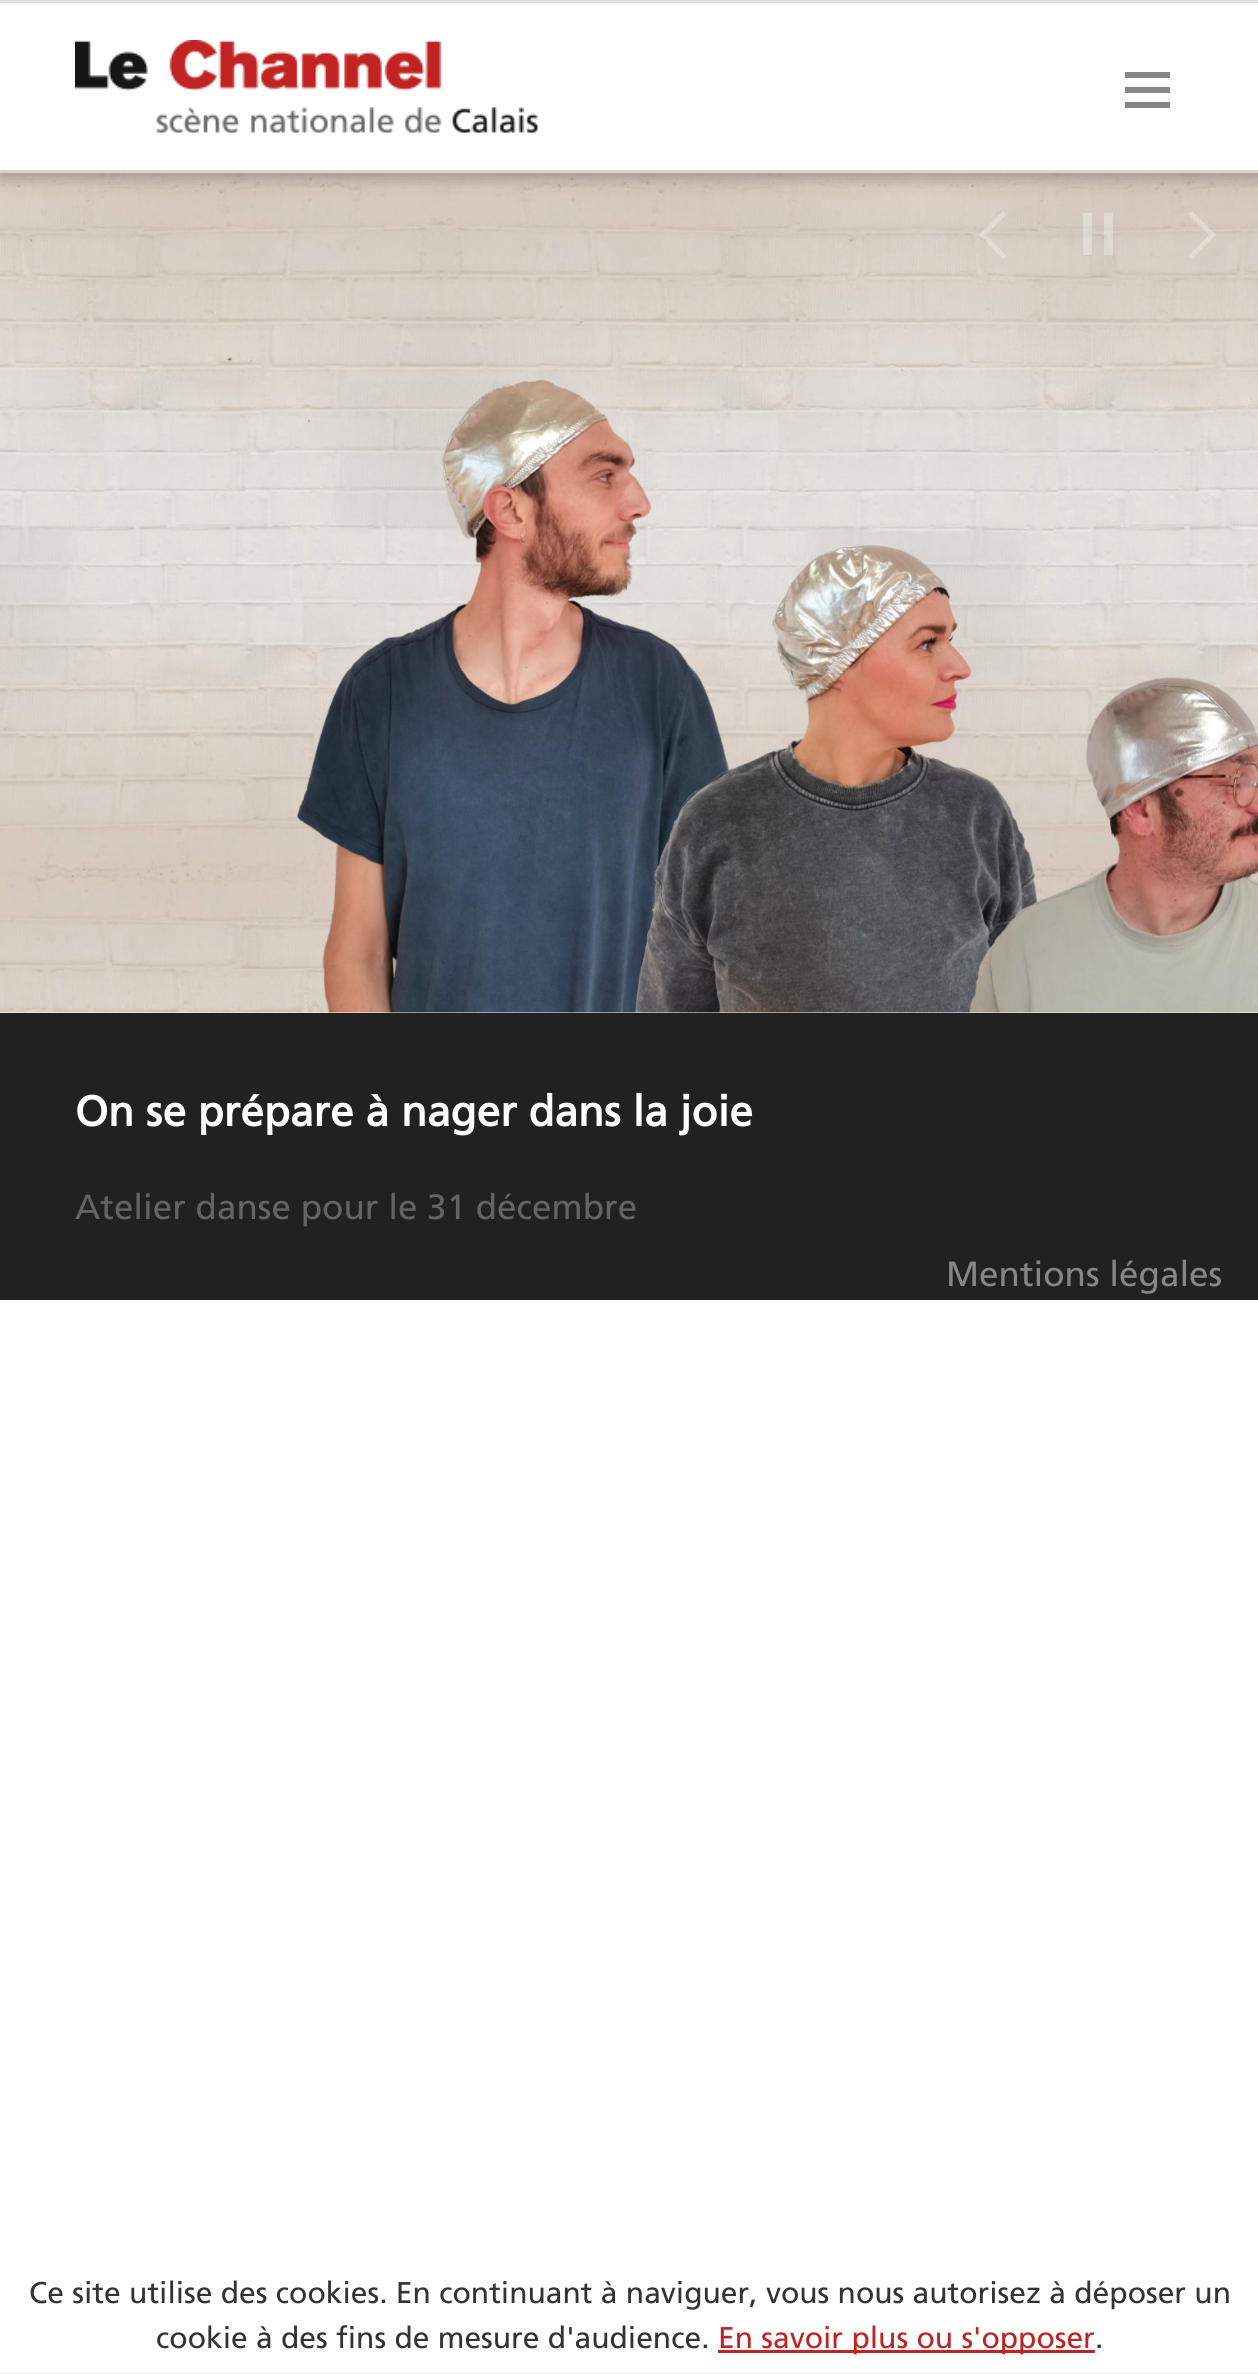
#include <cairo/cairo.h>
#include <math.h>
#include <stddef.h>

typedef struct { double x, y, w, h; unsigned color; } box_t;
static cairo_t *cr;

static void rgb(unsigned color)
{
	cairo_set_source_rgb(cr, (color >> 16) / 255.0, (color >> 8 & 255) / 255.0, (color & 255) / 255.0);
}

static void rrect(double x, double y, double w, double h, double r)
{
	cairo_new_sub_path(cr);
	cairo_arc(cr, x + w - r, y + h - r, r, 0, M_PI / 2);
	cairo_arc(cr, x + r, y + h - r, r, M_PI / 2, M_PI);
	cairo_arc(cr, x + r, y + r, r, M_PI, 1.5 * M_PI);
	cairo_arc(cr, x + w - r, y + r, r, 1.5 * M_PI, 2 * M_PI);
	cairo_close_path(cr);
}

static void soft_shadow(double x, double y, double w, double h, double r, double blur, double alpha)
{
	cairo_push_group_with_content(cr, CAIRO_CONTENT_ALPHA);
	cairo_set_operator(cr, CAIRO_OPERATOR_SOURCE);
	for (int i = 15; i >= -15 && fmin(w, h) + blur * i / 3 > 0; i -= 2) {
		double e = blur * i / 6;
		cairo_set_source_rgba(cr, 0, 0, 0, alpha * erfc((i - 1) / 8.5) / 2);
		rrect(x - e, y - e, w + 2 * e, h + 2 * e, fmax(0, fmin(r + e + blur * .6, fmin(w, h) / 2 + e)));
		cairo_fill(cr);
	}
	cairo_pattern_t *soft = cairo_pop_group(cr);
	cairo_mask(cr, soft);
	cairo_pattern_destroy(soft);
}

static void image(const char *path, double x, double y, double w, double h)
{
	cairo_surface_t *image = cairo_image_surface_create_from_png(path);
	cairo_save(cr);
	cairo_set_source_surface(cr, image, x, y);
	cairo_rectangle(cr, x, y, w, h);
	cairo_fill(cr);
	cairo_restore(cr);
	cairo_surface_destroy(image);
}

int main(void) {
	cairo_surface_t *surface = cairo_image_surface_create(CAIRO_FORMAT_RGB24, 1258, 2374);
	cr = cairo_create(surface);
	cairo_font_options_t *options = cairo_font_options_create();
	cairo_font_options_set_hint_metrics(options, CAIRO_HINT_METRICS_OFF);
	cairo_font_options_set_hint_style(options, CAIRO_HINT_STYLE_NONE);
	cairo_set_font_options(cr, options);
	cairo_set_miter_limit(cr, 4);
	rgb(0xffffff);
	cairo_paint(cr);
	rgb(0xfafafa);
	cairo_rectangle(cr, 0, 1012, 1258, 1);
	cairo_fill(cr);
	image("img/2.png", 0, 173, 1258, 840);
	cairo_set_source_rgba(cr, 1, 1, 1, 0.3);
	cairo_new_path(cr);
	cairo_move_to(cr, 1003, 259);
	cairo_line_to(cr, 979, 235);
	cairo_line_to(cr, 1003, 211);
	cairo_line_to(cr, 1007, 214);
	cairo_line_to(cr, 986, 235);
	cairo_line_to(cr, 1007, 256);
	cairo_close_path(cr);
	cairo_fill(cr);
	cairo_new_path(cr);
	cairo_move_to(cr, 1104, 255);
	cairo_line_to(cr, 1104, 213);
	cairo_line_to(cr, 1113, 213);
	cairo_line_to(cr, 1113, 255);
	cairo_close_path(cr);
	cairo_move_to(cr, 1083, 255);
	cairo_line_to(cr, 1083, 213);
	cairo_line_to(cr, 1092, 213);
	cairo_line_to(cr, 1092, 255);
	cairo_close_path(cr);
	cairo_fill(cr);
	cairo_new_path(cr);
	cairo_move_to(cr, 1192, 259);
	cairo_line_to(cr, 1188, 256);
	cairo_line_to(cr, 1209, 235);
	cairo_line_to(cr, 1188, 214);
	cairo_line_to(cr, 1192, 211);
	cairo_line_to(cr, 1216, 235);
	cairo_close_path(cr);
	cairo_fill(cr);
	rgb(0x000000);
	soft_shadow(0, 5, 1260, 173, 0, 12.5, 0.12);
	soft_shadow(0, 5, 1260, 173, 0, 6, 0.16);
	{
		static const box_t items[] = {
			{0, 3, 1258, 167, 0xffffff},
			{0, 0, 1258, 3, 0xe0e0e0},
			{0, 170, 1258, 3, 0xd5d5d5},
		};
		for (size_t i = 0; i < sizeof items / sizeof *items; i++) {
			rgb(items[i].color);
			cairo_rectangle(cr, items[i].x, items[i].y, items[i].w, items[i].h);
			cairo_fill(cr);
		}
	}
	image("img/1.png", 75, 40, 463, 93);
	{
		static const box_t items[] = {
			{1125, 72, 45, 6, 0x868686},
			{1125, 87, 45, 6, 0x868686},
			{1125, 102, 45, 6, 0x868686},
			{0, 1013, 1258, 287, 0x212121},
			{0, 2373, 1258, 1, 0xeeeeee},
			{718, 2350, 377, 3, 0xc12323},
		};
		for (size_t i = 0; i < sizeof items / sizeof *items; i++) {
			rgb(items[i].color);
			cairo_rectangle(cr, items[i].x, items[i].y, items[i].w, items[i].h);
			cairo_fill(cr);
		}
	}
	cairo_select_font_face(cr, "Frutiger", CAIRO_FONT_SLANT_NORMAL, CAIRO_FONT_WEIGHT_BOLD);
	cairo_set_font_size(cr, 42.5);
	rgb(0xffffff);
	cairo_move_to(cr, 75, 1126);
	cairo_show_text(cr, "On se prépare à nager dans la joie");
	cairo_select_font_face(cr, "Frutiger", CAIRO_FONT_SLANT_NORMAL, CAIRO_FONT_WEIGHT_NORMAL);
	cairo_set_font_size(cr, 35);
	rgb(0x646464);
	cairo_move_to(cr, 75, 1219);
	cairo_show_text(cr, "Atelier danse pour le 31 décembre");
	rgb(0x868686);
	cairo_move_to(cr, 946, 1286);
	cairo_show_text(cr, "Mentions légales");
	cairo_set_font_size(cr, 30);
	rgb(0x333333);
	cairo_move_to(cr, 29, 2303);
	cairo_show_text(cr, "Ce site utilise des cookies. En continuant à naviguer, vous nous autorisez à déposer un");
	cairo_move_to(cr, 156, 2348);
	cairo_show_text(cr, "cookie à des fins de mesure d'audience.");
	rgb(0xc12323);
	cairo_move_to(cr, 718, 2348);
	cairo_show_text(cr, "En savoir plus ou s'opposer");
	rgb(0x333333);
	cairo_move_to(cr, 1095, 2348);
	cairo_show_text(cr, ".");
	cairo_surface_write_to_png(surface, "page.png");
	cairo_font_options_destroy(options);
	cairo_destroy(cr);
	cairo_surface_destroy(surface);
	return 0;
}
